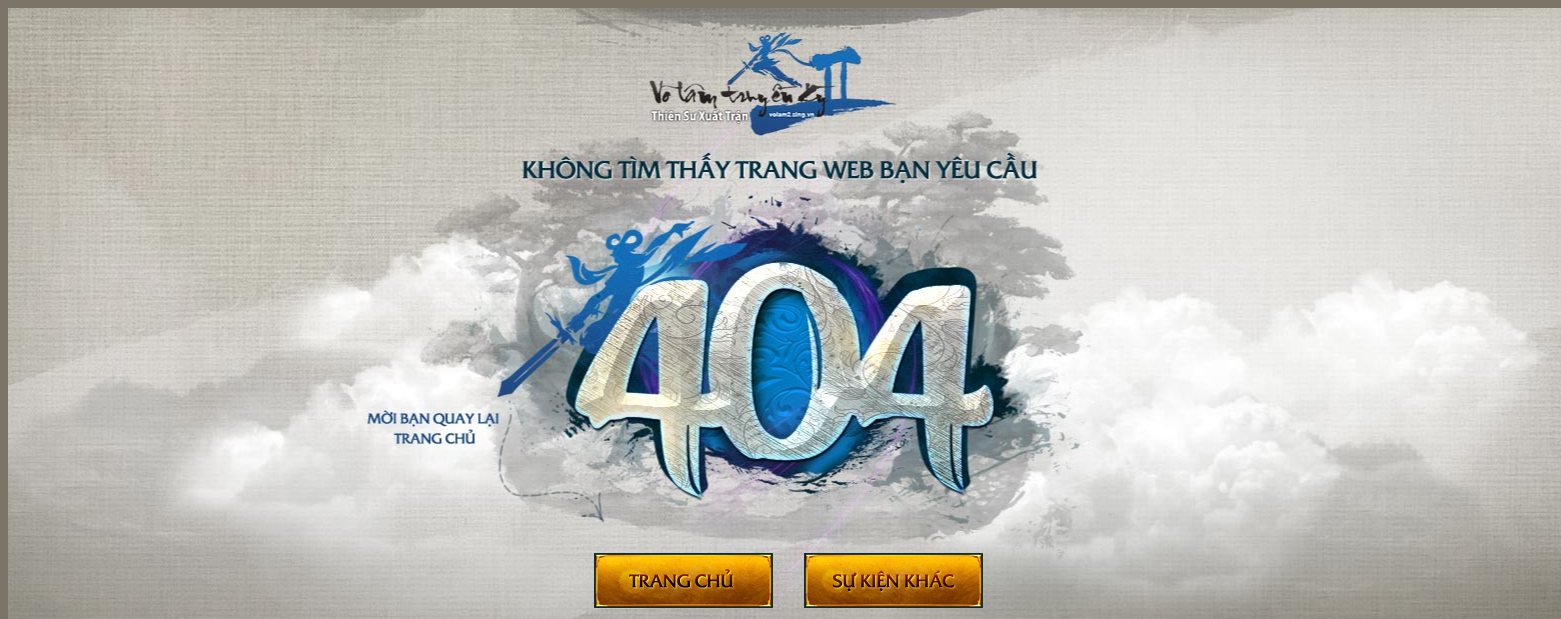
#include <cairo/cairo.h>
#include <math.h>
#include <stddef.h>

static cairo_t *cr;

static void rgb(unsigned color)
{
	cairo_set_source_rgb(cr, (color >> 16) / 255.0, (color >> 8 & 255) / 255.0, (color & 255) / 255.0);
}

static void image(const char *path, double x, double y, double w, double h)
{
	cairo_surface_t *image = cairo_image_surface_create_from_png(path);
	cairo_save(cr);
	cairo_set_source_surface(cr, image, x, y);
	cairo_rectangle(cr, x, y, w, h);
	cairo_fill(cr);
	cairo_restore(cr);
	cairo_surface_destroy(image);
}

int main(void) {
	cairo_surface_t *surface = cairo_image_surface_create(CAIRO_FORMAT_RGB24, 1561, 619);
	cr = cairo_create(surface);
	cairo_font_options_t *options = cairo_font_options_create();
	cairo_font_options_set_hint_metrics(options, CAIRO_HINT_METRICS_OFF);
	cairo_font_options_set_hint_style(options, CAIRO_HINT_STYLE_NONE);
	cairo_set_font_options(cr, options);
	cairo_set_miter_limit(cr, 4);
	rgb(0x7c7567);
	cairo_paint(cr);
	image("img/1.png", 8, 8, 1553, 611);
	image("img/2.png", 594, 553, 179, 56);
	image("img/3.png", 804, 553, 179, 55);
	cairo_surface_write_to_png(surface, "page.png");
	cairo_font_options_destroy(options);
	cairo_destroy(cr);
	cairo_surface_destroy(surface);
	return 0;
}
